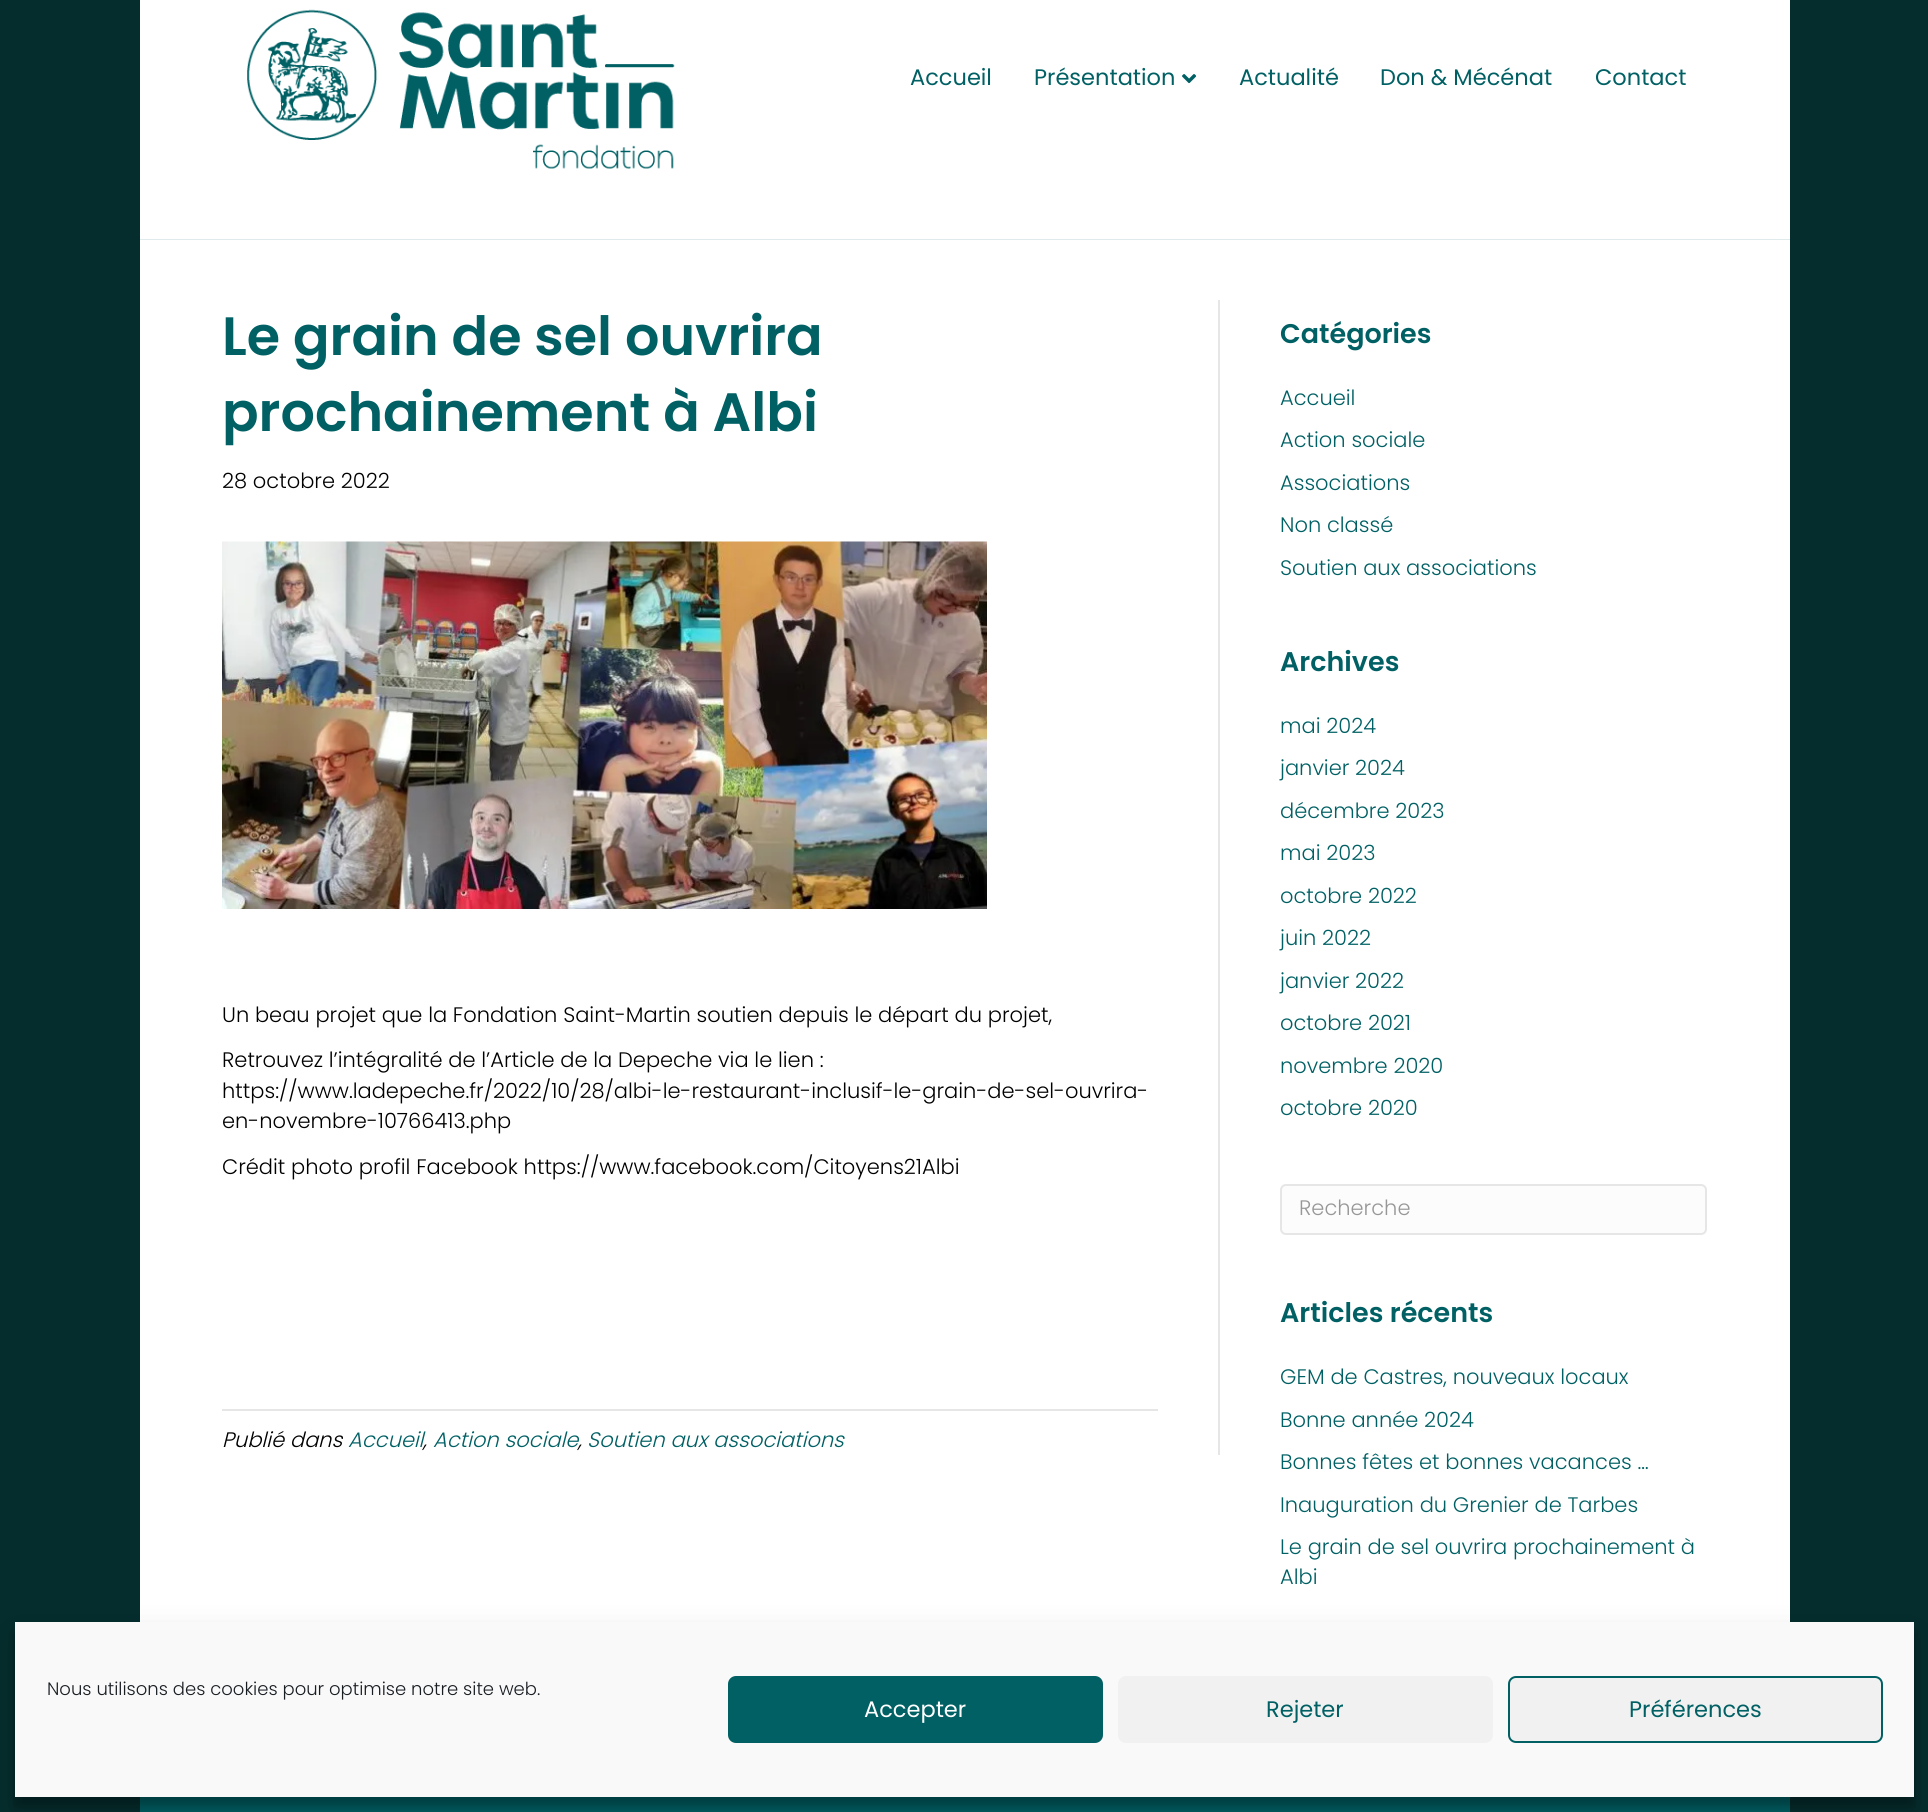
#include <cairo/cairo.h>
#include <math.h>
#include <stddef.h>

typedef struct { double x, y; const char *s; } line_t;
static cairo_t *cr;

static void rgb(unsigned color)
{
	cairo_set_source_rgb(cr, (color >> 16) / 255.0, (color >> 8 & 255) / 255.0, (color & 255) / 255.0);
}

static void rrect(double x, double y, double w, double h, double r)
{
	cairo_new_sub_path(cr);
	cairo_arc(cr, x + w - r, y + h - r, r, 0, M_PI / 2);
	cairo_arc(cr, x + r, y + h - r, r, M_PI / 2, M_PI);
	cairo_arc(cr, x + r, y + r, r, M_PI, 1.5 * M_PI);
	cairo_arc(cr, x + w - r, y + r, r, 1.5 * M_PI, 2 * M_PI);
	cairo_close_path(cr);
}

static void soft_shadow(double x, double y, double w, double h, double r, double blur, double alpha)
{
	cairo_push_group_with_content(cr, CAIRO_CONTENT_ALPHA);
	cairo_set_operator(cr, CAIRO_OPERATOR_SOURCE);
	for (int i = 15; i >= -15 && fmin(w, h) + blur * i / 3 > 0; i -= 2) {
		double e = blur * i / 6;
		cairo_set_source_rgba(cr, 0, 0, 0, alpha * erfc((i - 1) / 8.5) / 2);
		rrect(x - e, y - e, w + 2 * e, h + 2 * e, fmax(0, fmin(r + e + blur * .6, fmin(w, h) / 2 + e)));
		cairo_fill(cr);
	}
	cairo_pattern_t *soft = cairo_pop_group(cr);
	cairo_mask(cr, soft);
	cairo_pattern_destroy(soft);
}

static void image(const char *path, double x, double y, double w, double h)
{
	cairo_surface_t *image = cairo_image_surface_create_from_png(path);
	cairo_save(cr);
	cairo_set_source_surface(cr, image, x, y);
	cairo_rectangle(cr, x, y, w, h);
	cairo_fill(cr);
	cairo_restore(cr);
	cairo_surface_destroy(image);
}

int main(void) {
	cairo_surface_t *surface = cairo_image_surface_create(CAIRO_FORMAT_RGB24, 1928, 1812);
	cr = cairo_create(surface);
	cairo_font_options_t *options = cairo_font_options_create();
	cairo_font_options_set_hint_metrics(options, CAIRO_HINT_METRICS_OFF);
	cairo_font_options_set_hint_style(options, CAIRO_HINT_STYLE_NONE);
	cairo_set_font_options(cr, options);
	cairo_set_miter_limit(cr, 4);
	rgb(0x052d2d);
	cairo_paint(cr);
	rgb(0xffffff);
	cairo_rectangle(cr, 140, 0, 1650, 239);
	cairo_fill(cr);
	rgb(0xdeeaeb);
	cairo_rectangle(cr, 140, 239, 1650, 1);
	cairo_fill(cr);
	image("img/1.png", 247, 9, 428, 160);
	image("img/2.png", 1182, 74, 15, 10);
	rgb(0xffffff);
	cairo_rectangle(cr, 140, 240, 1650, 1382);
	cairo_fill(cr);
	rgb(0xe6e6e6);
	cairo_rectangle(cr, 1218, 300, 2, 1155);
	cairo_fill(cr);
	image("img/3.png", 222, 541, 765, 368);
	cairo_rectangle(cr, 222, 1409, 936, 2);
	cairo_fill(cr);
	rgb(0xfcfcfc);
	rrect(1281, 1185, 425, 49, 5);
	cairo_fill_preserve(cr);
	rgb(0xe6e6e6);
	cairo_stroke(cr);
	rgb(0x006064);
	cairo_rectangle(cr, 140, 1797, 1650, 15);
	cairo_fill(cr);
	rgb(0x000000);
	soft_shadow(15, 1631, 1899, 175, 0, 4.5, 0.23);
	soft_shadow(15, 1637, 1899, 175, 0, 15, 0.19);
	rgb(0xf9f9f9);
	cairo_rectangle(cr, 15, 1622, 1899, 175);
	cairo_fill(cr);
	rgb(0x006064);
	rrect(729, 1677, 373, 65, 7);
	cairo_fill_preserve(cr);
	cairo_stroke(cr);
	rgb(0xf1f1f1);
	rrect(1118, 1676, 375, 67, 8);
	cairo_fill(cr);
	rrect(1509, 1677, 373, 65, 7);
	cairo_fill_preserve(cr);
	rgb(0x006064);
	cairo_stroke(cr);
	cairo_select_font_face(cr, "Poppins", CAIRO_FONT_SLANT_NORMAL, CAIRO_FONT_WEIGHT_NORMAL);
	cairo_set_font_size(cr, 22.5);
	{
		static const line_t items[] = {
			{910, 85, "Accueil"},
			{1034, 85, "Présentation"},
			{1239, 85, "Actualité"},
			{1380, 85, "Don & Mécénat"},
			{1595, 85, "Contact"},
		};
		for (size_t i = 0; i < sizeof items / sizeof *items; i++) {
			cairo_move_to(cr, items[i].x, items[i].y);
			cairo_show_text(cr, items[i].s);
		}
	}
	cairo_select_font_face(cr, "Poppins SemiBold", CAIRO_FONT_SLANT_NORMAL, CAIRO_FONT_WEIGHT_NORMAL);
	cairo_set_font_size(cr, 54);
	cairo_move_to(cr, 222, 355);
	cairo_show_text(cr, "Le grain de sel ouvrira");
	cairo_move_to(cr, 222, 431);
	cairo_show_text(cr, "prochainement à Albi");
	cairo_select_font_face(cr, "Poppins Light", CAIRO_FONT_SLANT_NORMAL, CAIRO_FONT_WEIGHT_NORMAL);
	cairo_set_font_size(cr, 21);
	rgb(0x000000);
	{
		static const line_t items[] = {
			{222, 488, "28 octobre 2022"},
			{222, 1022, "Un beau projet que la Fondation Saint-Martin soutien depuis le départ du projet,"},
			{222, 1067, "Retrouvez l’intégralité de l’Article de la Depeche via le lien :"},
			{222, 1098, "https://www.ladepeche.fr/2022/10/28/albi-le-restaurant-inclusif-le-grain-de-sel-ouvrira-"},
			{222, 1128, "en-novembre-10766413.php"},
			{222, 1174, "Crédit photo profil Facebook https://www.facebook.com/Citoyens21Albi"},
		};
		for (size_t i = 0; i < sizeof items / sizeof *items; i++) {
			cairo_move_to(cr, items[i].x, items[i].y);
			cairo_show_text(cr, items[i].s);
		}
	}
	cairo_select_font_face(cr, "Poppins Light", CAIRO_FONT_SLANT_ITALIC, CAIRO_FONT_WEIGHT_NORMAL);
	cairo_move_to(cr, 222, 1447);
	cairo_show_text(cr, "Publié dans");
	rgb(0x006064);
	{
		static const line_t items[] = {
			{348, 1447, "Accueil"},
			{433, 1447, "Action sociale"},
			{587, 1447, "Soutien aux associations"},
		};
		for (size_t i = 0; i < sizeof items / sizeof *items; i++) {
			cairo_move_to(cr, items[i].x, items[i].y);
			cairo_show_text(cr, items[i].s);
		}
	}
	rgb(0x000000);
	cairo_move_to(cr, 423, 1447);
	cairo_show_text(cr, ",");
	cairo_move_to(cr, 578, 1447);
	cairo_show_text(cr, ",");
	cairo_select_font_face(cr, "Poppins SemiBold", CAIRO_FONT_SLANT_NORMAL, CAIRO_FONT_WEIGHT_NORMAL);
	cairo_set_font_size(cr, 27);
	rgb(0x006064);
	cairo_move_to(cr, 1280, 343);
	cairo_show_text(cr, "Catégories");
	cairo_select_font_face(cr, "Poppins Light", CAIRO_FONT_SLANT_NORMAL, CAIRO_FONT_WEIGHT_NORMAL);
	cairo_set_font_size(cr, 21);
	{
		static const line_t items[] = {
			{1280, 405, "Accueil"},
			{1280, 447, "Action sociale"},
			{1280, 490, "Associations"},
			{1280, 532, "Non classé"},
			{1280, 575, "Soutien aux associations"},
		};
		for (size_t i = 0; i < sizeof items / sizeof *items; i++) {
			cairo_move_to(cr, items[i].x, items[i].y);
			cairo_show_text(cr, items[i].s);
		}
	}
	cairo_select_font_face(cr, "Poppins SemiBold", CAIRO_FONT_SLANT_NORMAL, CAIRO_FONT_WEIGHT_NORMAL);
	cairo_set_font_size(cr, 27);
	cairo_move_to(cr, 1280, 671);
	cairo_show_text(cr, "Archives");
	cairo_select_font_face(cr, "Poppins Light", CAIRO_FONT_SLANT_NORMAL, CAIRO_FONT_WEIGHT_NORMAL);
	cairo_set_font_size(cr, 21);
	{
		static const line_t items[] = {
			{1280, 733, "mai 2024"},
			{1280, 775, "janvier 2024"},
			{1280, 818, "décembre 2023"},
			{1280, 860, "mai 2023"},
			{1280, 903, "octobre 2022"},
			{1280, 945, "juin 2022"},
			{1280, 988, "janvier 2022"},
			{1280, 1030, "octobre 2021"},
			{1280, 1073, "novembre 2020"},
			{1280, 1115, "octobre 2020"},
		};
		for (size_t i = 0; i < sizeof items / sizeof *items; i++) {
			cairo_move_to(cr, items[i].x, items[i].y);
			cairo_show_text(cr, items[i].s);
		}
	}
	rgb(0x979797);
	cairo_move_to(cr, 1299, 1215);
	cairo_show_text(cr, "Recherche");
	cairo_select_font_face(cr, "Poppins SemiBold", CAIRO_FONT_SLANT_NORMAL, CAIRO_FONT_WEIGHT_NORMAL);
	cairo_set_font_size(cr, 27);
	rgb(0x006064);
	cairo_move_to(cr, 1280, 1322);
	cairo_show_text(cr, "Articles récents");
	cairo_select_font_face(cr, "Poppins Light", CAIRO_FONT_SLANT_NORMAL, CAIRO_FONT_WEIGHT_NORMAL);
	cairo_set_font_size(cr, 21);
	{
		static const line_t items[] = {
			{1280, 1384, "GEM de Castres, nouveaux locaux"},
			{1280, 1427, "Bonne année 2024"},
			{1280, 1469, "Bonnes fêtes et bonnes vacances …"},
			{1280, 1512, "Inauguration du Grenier de Tarbes"},
			{1280, 1554, "Le grain de sel ouvrira prochainement à"},
			{1280, 1584, "Albi"},
		};
		for (size_t i = 0; i < sizeof items / sizeof *items; i++) {
			cairo_move_to(cr, items[i].x, items[i].y);
			cairo_show_text(cr, items[i].s);
		}
	}
	cairo_set_font_size(cr, 18);
	rgb(0x191e23);
	cairo_move_to(cr, 47, 1695);
	cairo_show_text(cr, "Nous utilisons des cookies pour optimise notre site web.");
	cairo_select_font_face(cr, "Poppins", CAIRO_FONT_SLANT_NORMAL, CAIRO_FONT_WEIGHT_NORMAL);
	cairo_set_font_size(cr, 22.5);
	rgb(0xffffff);
	cairo_move_to(cr, 864, 1717);
	cairo_show_text(cr, "Accepter");
	rgb(0x006064);
	cairo_move_to(cr, 1266, 1717);
	cairo_show_text(cr, "Rejeter");
	cairo_move_to(cr, 1629, 1717);
	cairo_show_text(cr, "Préférences");
	cairo_surface_write_to_png(surface, "page.png");
	cairo_font_options_destroy(options);
	cairo_destroy(cr);
	cairo_surface_destroy(surface);
	return 0;
}
